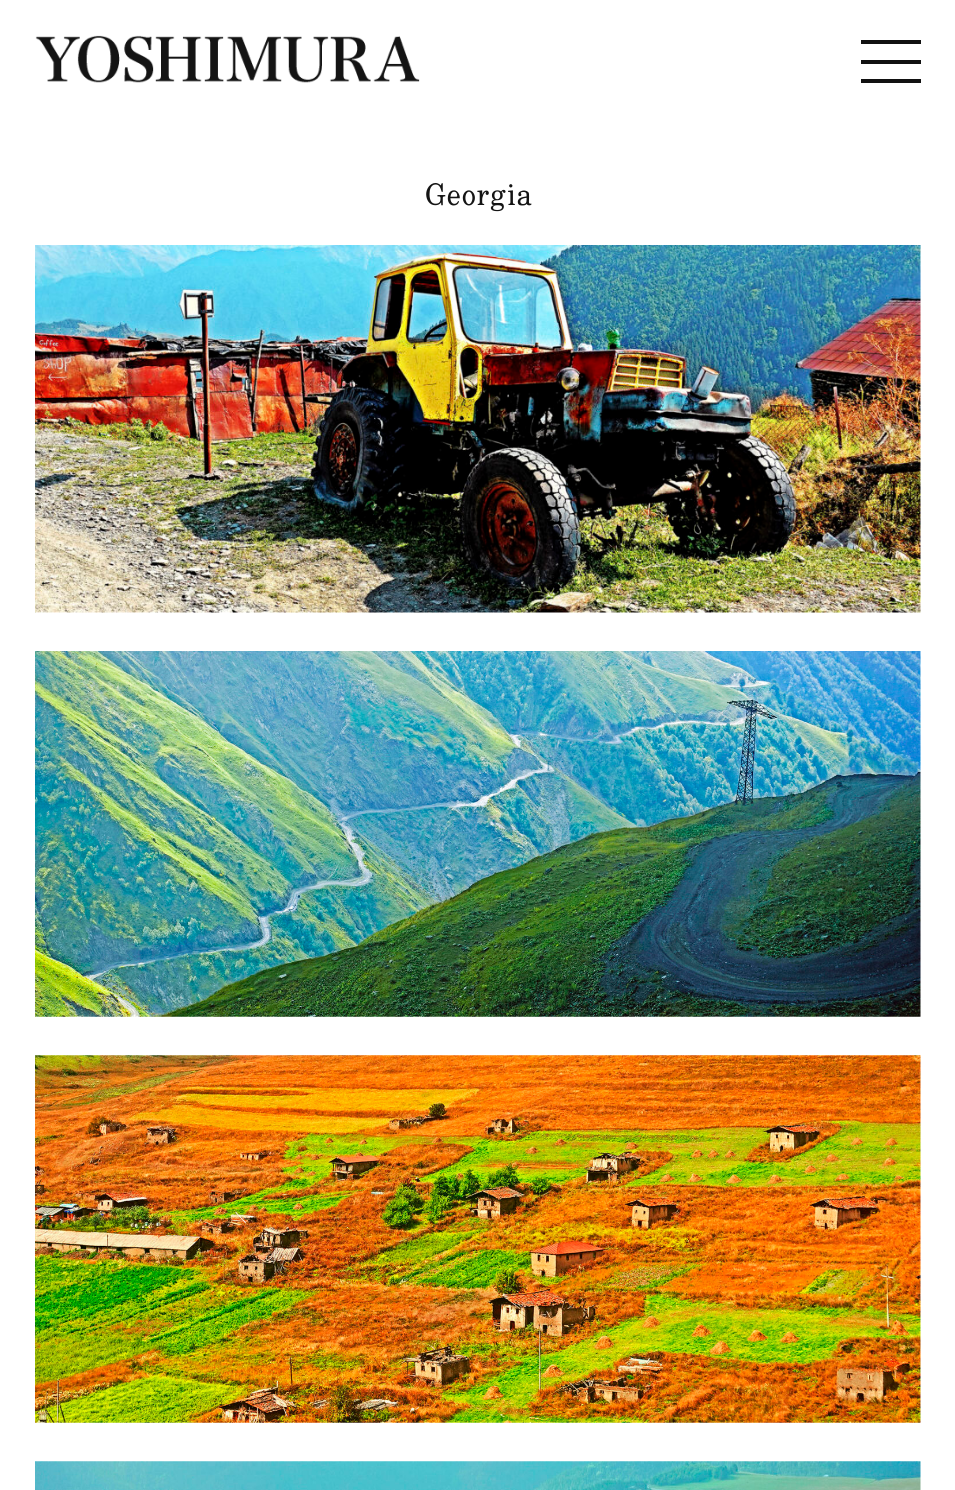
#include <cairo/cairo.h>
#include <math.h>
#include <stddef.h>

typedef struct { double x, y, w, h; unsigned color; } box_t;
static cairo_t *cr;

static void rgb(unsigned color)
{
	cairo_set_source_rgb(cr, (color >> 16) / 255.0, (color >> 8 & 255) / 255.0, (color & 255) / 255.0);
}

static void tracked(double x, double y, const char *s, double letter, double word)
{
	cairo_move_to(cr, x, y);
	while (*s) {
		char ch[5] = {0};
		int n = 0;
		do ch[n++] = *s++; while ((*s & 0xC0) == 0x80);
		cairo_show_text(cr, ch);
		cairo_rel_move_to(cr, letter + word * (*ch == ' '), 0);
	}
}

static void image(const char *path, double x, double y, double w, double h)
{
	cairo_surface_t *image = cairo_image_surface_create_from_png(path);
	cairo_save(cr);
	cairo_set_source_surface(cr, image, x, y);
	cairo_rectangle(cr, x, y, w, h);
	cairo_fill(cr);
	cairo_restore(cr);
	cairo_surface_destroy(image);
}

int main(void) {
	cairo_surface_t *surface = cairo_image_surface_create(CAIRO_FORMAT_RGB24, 955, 1490);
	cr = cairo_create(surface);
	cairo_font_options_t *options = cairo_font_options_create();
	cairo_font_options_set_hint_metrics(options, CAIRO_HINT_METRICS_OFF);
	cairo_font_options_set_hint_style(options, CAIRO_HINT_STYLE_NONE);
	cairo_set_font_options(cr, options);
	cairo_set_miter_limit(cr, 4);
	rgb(0xffffff);
	cairo_paint(cr);
	image("img/1.png", 35, 35, 385, 48);
	{
		static const box_t items[] = {
			{861, 40, 60, 4, 0x111111},
			{861, 60, 60, 4, 0x111111},
			{861, 79, 60, 4, 0x111111},
		};
		for (size_t i = 0; i < sizeof items / sizeof *items; i++) {
			rgb(items[i].color);
			cairo_rectangle(cr, items[i].x, items[i].y, items[i].w, items[i].h);
			cairo_fill(cr);
		}
	}
	image("img/2.png", 35, 245, 886, 368);
	image("img/3.png", 35, 651, 886, 366);
	image("img/4.png", 35, 1055, 886, 368);
	image("img/5.png", 35, 1461, 886, 29);
	cairo_select_font_face(cr, "Uchen", CAIRO_FONT_SLANT_NORMAL, CAIRO_FONT_WEIGHT_NORMAL);
	cairo_set_font_size(cr, 30);
	rgb(0x141414);
	tracked(425, 205, "Georgia", 0.75, 0);
	cairo_surface_write_to_png(surface, "page.png");
	cairo_font_options_destroy(options);
	cairo_destroy(cr);
	cairo_surface_destroy(surface);
	return 0;
}
